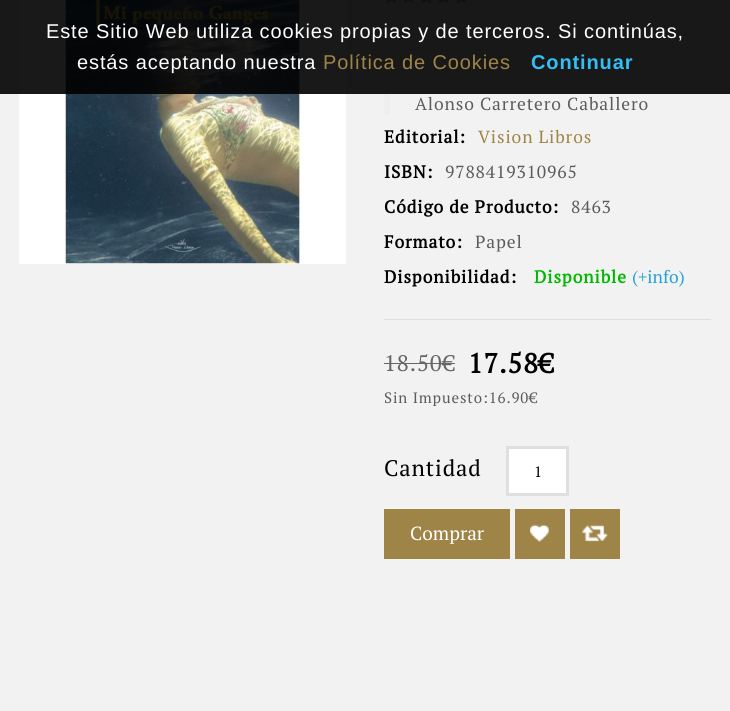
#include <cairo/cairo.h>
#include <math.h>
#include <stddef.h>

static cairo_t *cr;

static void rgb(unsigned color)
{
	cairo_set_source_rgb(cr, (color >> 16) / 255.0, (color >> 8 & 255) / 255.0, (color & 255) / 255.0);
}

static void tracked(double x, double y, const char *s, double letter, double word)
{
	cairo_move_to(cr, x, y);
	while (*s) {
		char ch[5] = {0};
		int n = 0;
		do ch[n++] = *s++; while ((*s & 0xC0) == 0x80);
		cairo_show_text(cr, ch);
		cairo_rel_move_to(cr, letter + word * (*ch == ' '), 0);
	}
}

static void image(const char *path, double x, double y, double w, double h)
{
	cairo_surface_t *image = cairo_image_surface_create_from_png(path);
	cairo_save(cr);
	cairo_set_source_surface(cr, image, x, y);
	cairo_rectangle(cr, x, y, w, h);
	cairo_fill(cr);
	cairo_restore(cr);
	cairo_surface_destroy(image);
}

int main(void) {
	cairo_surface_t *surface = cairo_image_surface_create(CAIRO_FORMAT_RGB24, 730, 711);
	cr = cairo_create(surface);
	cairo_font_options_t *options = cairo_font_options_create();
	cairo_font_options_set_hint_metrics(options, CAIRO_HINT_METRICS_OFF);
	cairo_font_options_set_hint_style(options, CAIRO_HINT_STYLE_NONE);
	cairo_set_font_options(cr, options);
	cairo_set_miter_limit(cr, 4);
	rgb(0xf2f2f2);
	cairo_paint(cr);
	rgb(0xffffff);
	cairo_rectangle(cr, 19, 0, 327, 264);
	cairo_fill(cr);
	image("img/1.png", 64, 0, 239, 264);
	image("img/2.png", 386, 0, 10, 4);
	image("img/3.png", 404, 0, 10, 4);
	image("img/2.png", 421, 0, 10, 4);
	image("img/3.png", 439, 0, 10, 4);
	image("img/2.png", 456, 0, 10, 4);
	rgb(0xdfdfdf);
	cairo_rectangle(cr, 384, 34, 327, 1);
	cairo_fill(cr);
	rgb(0xeeeeee);
	cairo_rectangle(cr, 384, 91, 6, 24);
	cairo_fill(cr);
	cairo_set_source_rgba(cr, 0, 0, 0, 0.9);
	cairo_rectangle(cr, 0, 0, 730, 94);
	cairo_fill(cr);
	rgb(0xdfdfdf);
	cairo_rectangle(cr, 384, 319, 327, 1);
	cairo_fill(cr);
	rgb(0x666666);
	cairo_rectangle(cr, 384, 363, 71, 1);
	cairo_fill(cr);
	rgb(0xffffff);
	cairo_rectangle(cr, 507.5, 447.5, 60, 47);
	cairo_fill_preserve(cr);
	rgb(0xdfdfdf);
	cairo_set_line_width(cr, 3);
	cairo_stroke(cr);
	rgb(0x9f8447);
	cairo_rectangle(cr, 384, 509, 126, 50);
	cairo_fill(cr);
	cairo_rectangle(cr, 515, 509, 50, 50);
	cairo_fill(cr);
	image("img/4.png", 530, 524, 19, 18);
	cairo_rectangle(cr, 570, 509, 50, 50);
	cairo_fill(cr);
	image("img/5.png", 582, 525, 26, 17);
	cairo_select_font_face(cr, "Liberation Sans", CAIRO_FONT_SLANT_NORMAL, CAIRO_FONT_WEIGHT_NORMAL);
	cairo_set_font_size(cr, 20);
	rgb(0xffffff);
	tracked(46, 38, "Este Sitio Web utiliza cookies propias y de terceros. Si continúas,", 0.88, 0);
	tracked(77, 69, "estás aceptando nuestra", 0.88, 0);
	rgb(0x9f8447);
	tracked(323, 69, "Política de Cookies", 0.88, 0);
	cairo_select_font_face(cr, "Liberation Sans", CAIRO_FONT_SLANT_NORMAL, CAIRO_FONT_WEIGHT_BOLD);
	rgb(0x32c0f4);
	tracked(531, 69, "Continuar", 0.88, 0);
	cairo_select_font_face(cr, "PT Serif", CAIRO_FONT_SLANT_NORMAL, CAIRO_FONT_WEIGHT_NORMAL);
	cairo_set_font_size(cr, 17.5);
	rgb(0x5c5c5c);
	tracked(415, 110, "Alonso Carretero Caballero", 0.88, 0);
	cairo_select_font_face(cr, "PT Serif", CAIRO_FONT_SLANT_NORMAL, CAIRO_FONT_WEIGHT_BOLD);
	rgb(0x000000);
	tracked(384, 143, "Editorial:", 0.88, 0);
	cairo_select_font_face(cr, "PT Serif", CAIRO_FONT_SLANT_NORMAL, CAIRO_FONT_WEIGHT_NORMAL);
	rgb(0x9f8447);
	tracked(478, 143, "Vision Libros", 0.88, 0);
	cairo_select_font_face(cr, "PT Serif", CAIRO_FONT_SLANT_NORMAL, CAIRO_FONT_WEIGHT_BOLD);
	rgb(0x000000);
	tracked(384, 178, "ISBN:", 0.88, 0);
	cairo_select_font_face(cr, "PT Serif", CAIRO_FONT_SLANT_NORMAL, CAIRO_FONT_WEIGHT_NORMAL);
	rgb(0x5c5c5c);
	tracked(445, 178, "9788419310965", 0.88, 0);
	cairo_select_font_face(cr, "PT Serif", CAIRO_FONT_SLANT_NORMAL, CAIRO_FONT_WEIGHT_BOLD);
	rgb(0x000000);
	tracked(384, 213, "Código de Producto:", 0.88, 0);
	cairo_select_font_face(cr, "PT Serif", CAIRO_FONT_SLANT_NORMAL, CAIRO_FONT_WEIGHT_NORMAL);
	rgb(0x5c5c5c);
	tracked(571, 213, "8463", 0.88, 0);
	cairo_select_font_face(cr, "PT Serif", CAIRO_FONT_SLANT_NORMAL, CAIRO_FONT_WEIGHT_BOLD);
	rgb(0x000000);
	tracked(384, 248, "Formato:", 0.88, 0);
	cairo_select_font_face(cr, "PT Serif", CAIRO_FONT_SLANT_NORMAL, CAIRO_FONT_WEIGHT_NORMAL);
	rgb(0x5c5c5c);
	tracked(475, 248, "Papel", 0.88, 0);
	cairo_select_font_face(cr, "PT Serif", CAIRO_FONT_SLANT_NORMAL, CAIRO_FONT_WEIGHT_BOLD);
	rgb(0x000000);
	tracked(384, 283, "Disponibilidad:", 0.88, 0);
	rgb(0x00b800);
	tracked(534, 283, "Disponible", 0.88, 0);
	cairo_select_font_face(cr, "PT Serif", CAIRO_FONT_SLANT_NORMAL, CAIRO_FONT_WEIGHT_NORMAL);
	rgb(0x23a1d1);
	cairo_move_to(cr, 632, 283);
	cairo_show_text(cr, "(+info)");
	cairo_set_font_size(cr, 22.5);
	rgb(0x666666);
	tracked(384, 371, "18.50€", 0.88, 0);
	cairo_select_font_face(cr, "PT Serif", CAIRO_FONT_SLANT_NORMAL, CAIRO_FONT_WEIGHT_BOLD);
	cairo_set_font_size(cr, 27.5);
	rgb(0x000000);
	tracked(468, 373, "17.58€", 0.88, 0);
	cairo_select_font_face(cr, "PT Serif", CAIRO_FONT_SLANT_NORMAL, CAIRO_FONT_WEIGHT_NORMAL);
	cairo_set_font_size(cr, 15);
	rgb(0x5c5c5c);
	tracked(384, 403, "Sin Impuesto:16.90€", 0.88, 0);
	cairo_set_font_size(cr, 22.5);
	rgb(0x000000);
	tracked(384, 476, "Cantidad", 0.88, 0);
	cairo_set_font_size(cr, 15);
	cairo_move_to(cr, 534, 477);
	cairo_show_text(cr, "1");
	cairo_set_font_size(cr, 19);
	rgb(0xffffff);
	cairo_move_to(cr, 410, 540);
	cairo_show_text(cr, "Comprar");
	cairo_surface_write_to_png(surface, "page.png");
	cairo_font_options_destroy(options);
	cairo_destroy(cr);
	cairo_surface_destroy(surface);
	return 0;
}
